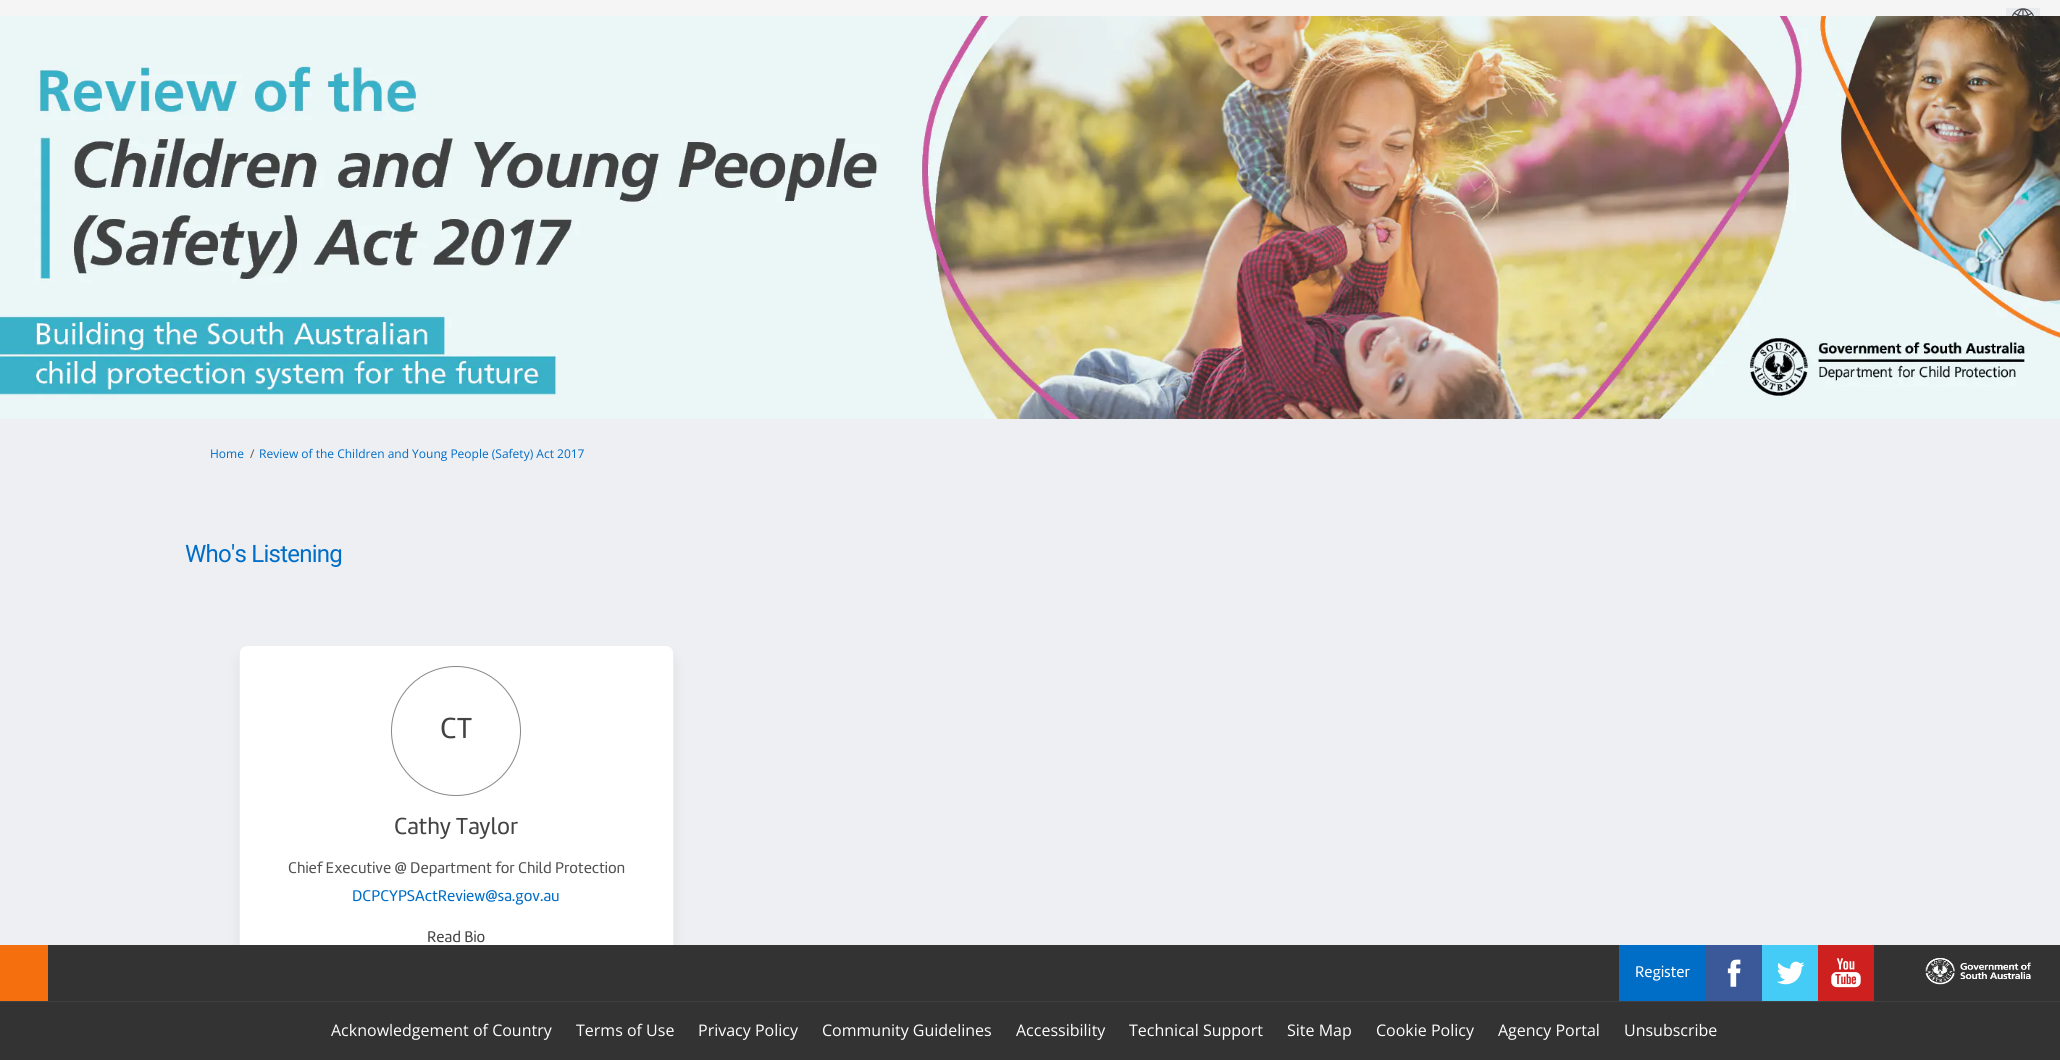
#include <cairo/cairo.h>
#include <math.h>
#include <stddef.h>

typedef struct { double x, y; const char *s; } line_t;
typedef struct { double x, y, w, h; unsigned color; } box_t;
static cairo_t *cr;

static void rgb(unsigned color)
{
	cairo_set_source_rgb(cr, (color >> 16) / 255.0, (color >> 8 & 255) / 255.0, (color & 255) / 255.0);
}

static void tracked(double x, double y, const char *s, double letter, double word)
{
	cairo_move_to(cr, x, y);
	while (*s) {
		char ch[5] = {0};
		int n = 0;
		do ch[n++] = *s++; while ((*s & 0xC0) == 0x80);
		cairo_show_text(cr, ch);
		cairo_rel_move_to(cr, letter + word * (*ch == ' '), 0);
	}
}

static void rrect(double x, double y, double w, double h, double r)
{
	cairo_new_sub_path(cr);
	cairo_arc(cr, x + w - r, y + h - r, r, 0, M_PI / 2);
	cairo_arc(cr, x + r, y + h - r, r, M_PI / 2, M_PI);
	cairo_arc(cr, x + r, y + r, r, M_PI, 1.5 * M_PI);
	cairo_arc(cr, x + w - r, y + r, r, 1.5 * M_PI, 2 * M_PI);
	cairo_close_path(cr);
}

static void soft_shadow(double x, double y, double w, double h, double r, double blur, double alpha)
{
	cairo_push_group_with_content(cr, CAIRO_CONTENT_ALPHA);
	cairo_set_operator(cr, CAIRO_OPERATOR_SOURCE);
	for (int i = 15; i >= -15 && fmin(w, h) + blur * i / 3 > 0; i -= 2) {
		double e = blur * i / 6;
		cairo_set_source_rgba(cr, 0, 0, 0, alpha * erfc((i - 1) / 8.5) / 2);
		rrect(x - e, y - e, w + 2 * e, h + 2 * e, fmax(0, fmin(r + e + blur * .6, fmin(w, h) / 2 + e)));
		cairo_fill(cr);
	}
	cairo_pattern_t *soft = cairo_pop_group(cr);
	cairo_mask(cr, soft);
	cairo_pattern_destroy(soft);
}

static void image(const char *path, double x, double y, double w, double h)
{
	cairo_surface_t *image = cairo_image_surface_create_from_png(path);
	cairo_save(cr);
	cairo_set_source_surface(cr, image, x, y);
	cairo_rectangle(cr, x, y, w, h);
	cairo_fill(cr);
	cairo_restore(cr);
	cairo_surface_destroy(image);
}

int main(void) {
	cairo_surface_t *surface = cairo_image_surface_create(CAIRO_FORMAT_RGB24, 2060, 1060);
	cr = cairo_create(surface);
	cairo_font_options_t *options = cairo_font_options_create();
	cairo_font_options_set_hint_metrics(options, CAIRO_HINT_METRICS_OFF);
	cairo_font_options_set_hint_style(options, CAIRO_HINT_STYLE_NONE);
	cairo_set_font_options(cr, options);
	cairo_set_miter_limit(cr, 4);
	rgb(0xedeff2);
	cairo_paint(cr);
	rgb(0xf5f5f5);
	cairo_rectangle(cr, 0, 0, 2060, 16);
	cairo_fill(cr);
	rgb(0xe8eaed);
	cairo_rectangle(cr, 2006, 8, 34, 8);
	cairo_fill(cr);
	image("img/1.png", 2012, 8, 22, 8);
	image("img/2.png", 0, 16, 2060, 403);
	rgb(0x000000);
	soft_shadow(242, 658, 429, 334, 5, 7.5, 0.1);
	rgb(0xffffff);
	rrect(239.5, 645.5, 434, 339, 7.5);
	cairo_fill_preserve(cr);
	rgb(0xeeeeee);
	cairo_set_line_width(cr, 1);
	cairo_stroke(cr);
	cairo_arc(cr, 456, 731, 64.5, 0, 2 * M_PI);
	rgb(0x888888);
	cairo_stroke(cr);
	{
		static const box_t items[] = {
			{0, 945, 2060, 115, 0x333333},
			{0, 945, 48, 56, 0xf66f0f},
			{1619, 945, 87, 56, 0x006dc7},
			{1706, 945, 56, 56, 0x3b5998},
		};
		for (size_t i = 0; i < sizeof items / sizeof *items; i++) {
			rgb(items[i].color);
			cairo_rectangle(cr, items[i].x, items[i].y, items[i].w, items[i].h);
			cairo_fill(cr);
		}
	}
	image("img/3.png", 1727, 959, 14, 28);
	rgb(0x44ccf6);
	cairo_rectangle(cr, 1762, 945, 56, 56);
	cairo_fill(cr);
	image("img/4.png", 1777, 961, 28, 24);
	rgb(0xcd201f);
	cairo_rectangle(cr, 1818, 945, 56, 56);
	cairo_fill(cr);
	image("img/5.png", 1831, 958, 30, 30);
	image("img/6.png", 1925, 958, 106, 27);
	rgb(0x404040);
	cairo_rectangle(cr, 0, 1001, 2060, 1);
	cairo_fill(cr);
	cairo_select_font_face(cr, "Open Sans", CAIRO_FONT_SLANT_NORMAL, CAIRO_FONT_WEIGHT_NORMAL);
	cairo_set_font_size(cr, 12);
	rgb(0x006dc7);
	cairo_move_to(cr, 210, 458);
	cairo_show_text(cr, "Home");
	rgb(0x525252);
	cairo_move_to(cr, 250, 458);
	cairo_show_text(cr, "/");
	rgb(0x006dc7);
	cairo_move_to(cr, 259, 458);
	cairo_show_text(cr, "Review of the Children and Young People (Safety) Act 2017");
	cairo_select_font_face(cr, "Roboto", CAIRO_FONT_SLANT_NORMAL, CAIRO_FONT_WEIGHT_NORMAL);
	cairo_set_font_size(cr, 24);
	tracked(185, 562, "Who's Listening", -0.75, 0);
	cairo_select_font_face(cr, "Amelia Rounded", CAIRO_FONT_SLANT_NORMAL, CAIRO_FONT_WEIGHT_NORMAL);
	cairo_set_font_size(cr, 30);
	rgb(0x434343);
	cairo_move_to(cr, 440, 738);
	cairo_show_text(cr, "CT");
	cairo_set_font_size(cr, 24);
	cairo_move_to(cr, 394, 834);
	cairo_show_text(cr, "Cathy Taylor");
	cairo_set_font_size(cr, 16);
	rgb(0x525252);
	cairo_move_to(cr, 288, 873);
	cairo_show_text(cr, "Chief Executive @ Department for Child Protection");
	rgb(0x006dc7);
	cairo_move_to(cr, 352, 901);
	cairo_show_text(cr, "DCPCYPSActReview@sa.gov.au");
	rgb(0x434343);
	cairo_move_to(cr, 427, 942);
	cairo_show_text(cr, "Read Bio");
	rgb(0xffffff);
	cairo_move_to(cr, 1635, 977);
	cairo_show_text(cr, "Register");
	cairo_select_font_face(cr, "Open Sans", CAIRO_FONT_SLANT_NORMAL, CAIRO_FONT_WEIGHT_NORMAL);
	{
		static const line_t items[] = {
			{331, 1036, "Acknowledgement of Country"},
			{576, 1036, "Terms of Use"},
			{698, 1036, "Privacy Policy"},
			{822, 1036, "Community Guidelines"},
			{1016, 1036, "Accessibility"},
			{1129, 1036, "Technical Support"},
			{1287, 1036, "Site Map"},
			{1376, 1036, "Cookie Policy"},
			{1498, 1036, "Agency Portal"},
			{1624, 1036, "Unsubscribe"},
		};
		for (size_t i = 0; i < sizeof items / sizeof *items; i++) {
			cairo_move_to(cr, items[i].x, items[i].y);
			cairo_show_text(cr, items[i].s);
		}
	}
	cairo_surface_write_to_png(surface, "page.png");
	cairo_font_options_destroy(options);
	cairo_destroy(cr);
	cairo_surface_destroy(surface);
	return 0;
}
